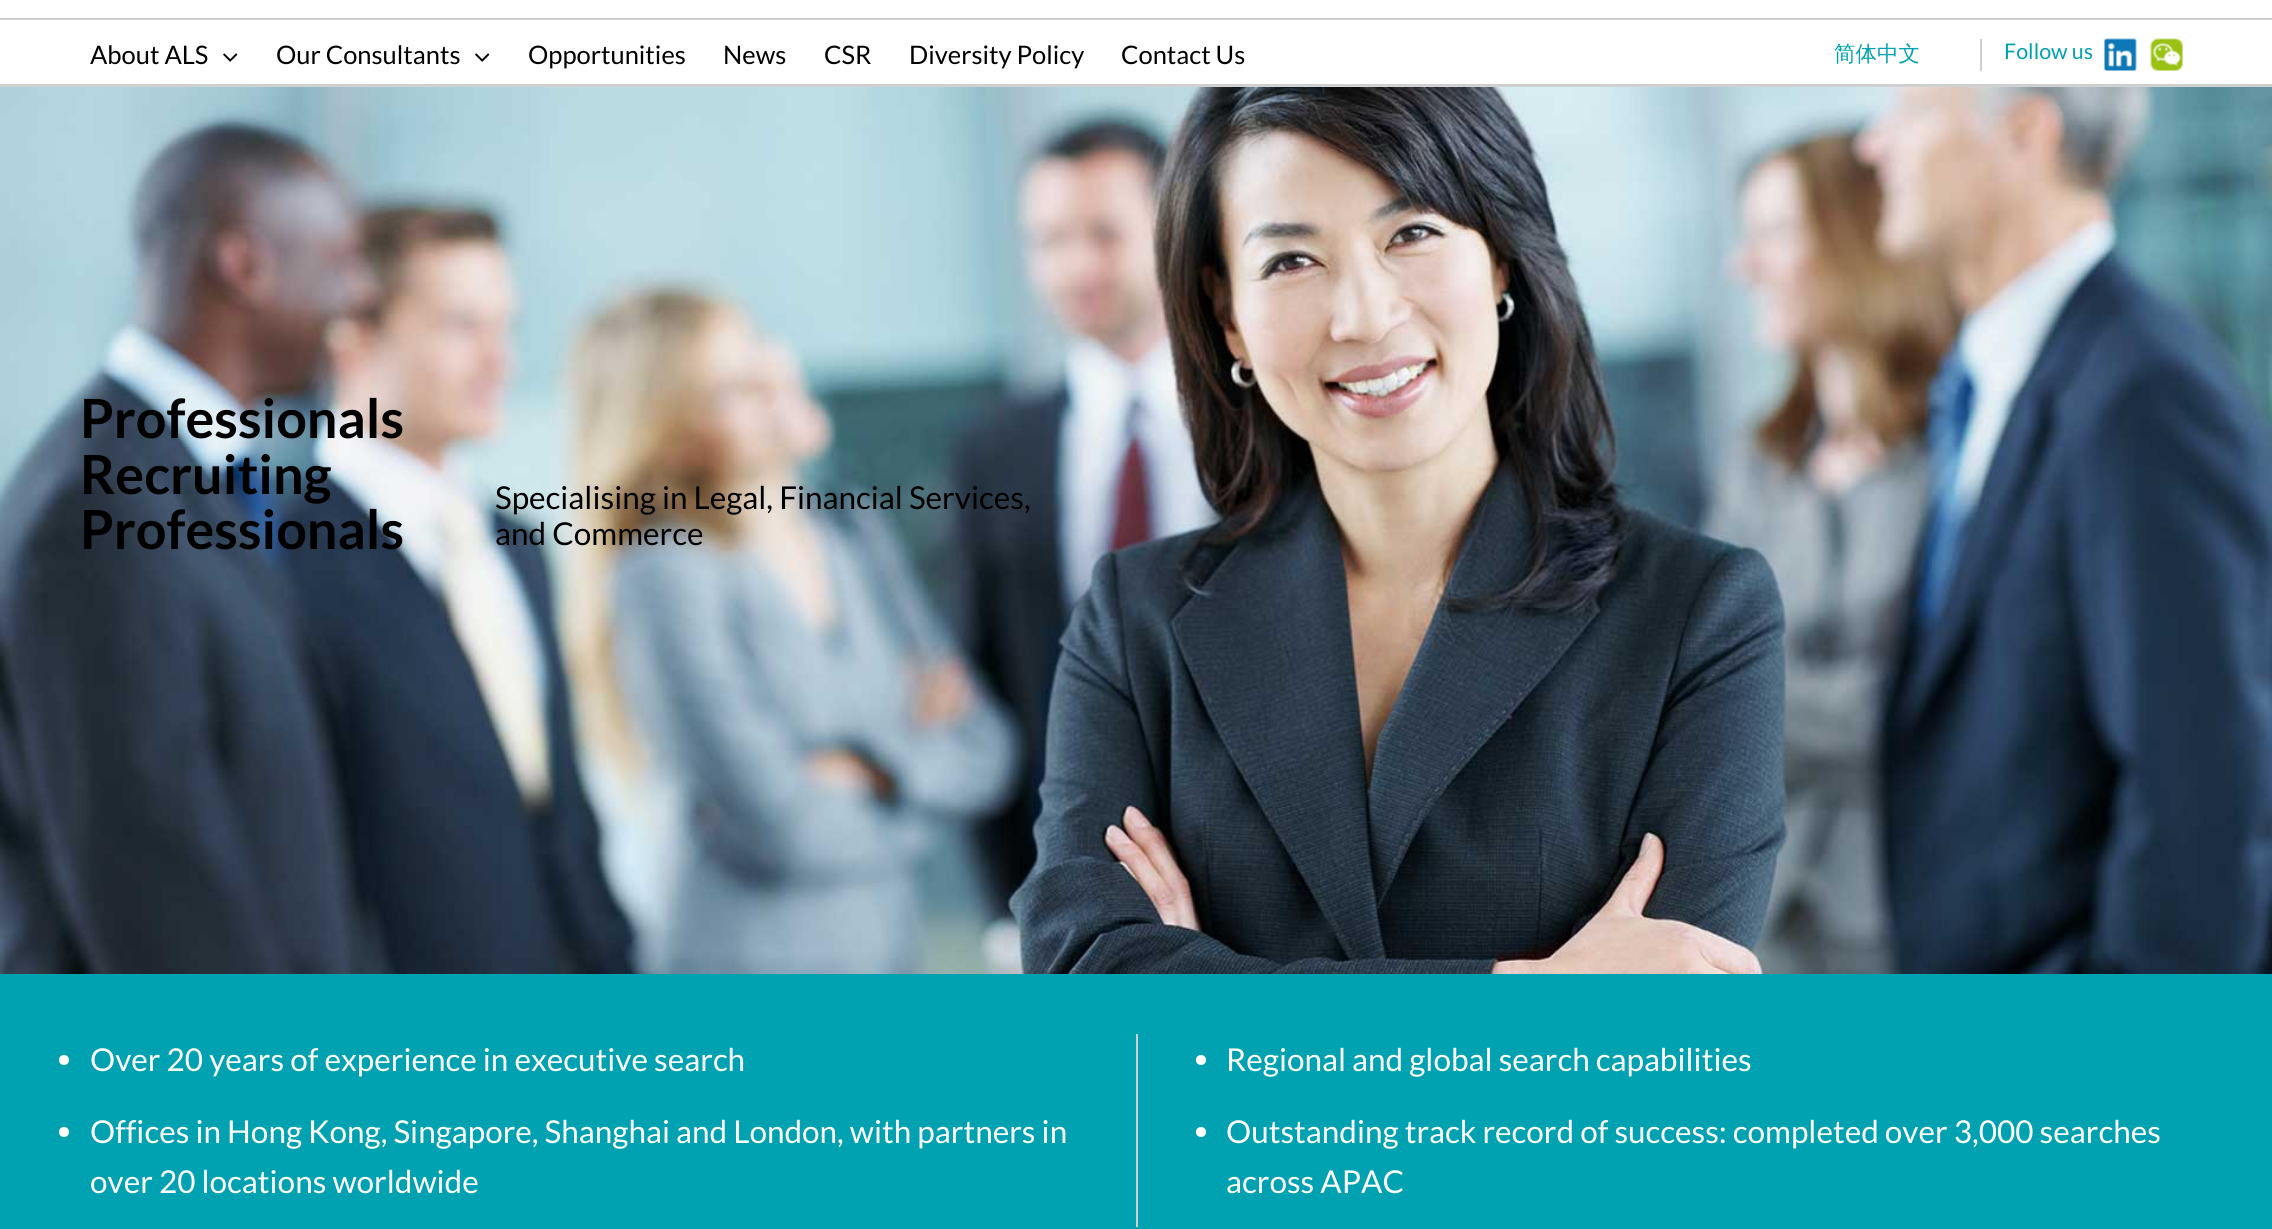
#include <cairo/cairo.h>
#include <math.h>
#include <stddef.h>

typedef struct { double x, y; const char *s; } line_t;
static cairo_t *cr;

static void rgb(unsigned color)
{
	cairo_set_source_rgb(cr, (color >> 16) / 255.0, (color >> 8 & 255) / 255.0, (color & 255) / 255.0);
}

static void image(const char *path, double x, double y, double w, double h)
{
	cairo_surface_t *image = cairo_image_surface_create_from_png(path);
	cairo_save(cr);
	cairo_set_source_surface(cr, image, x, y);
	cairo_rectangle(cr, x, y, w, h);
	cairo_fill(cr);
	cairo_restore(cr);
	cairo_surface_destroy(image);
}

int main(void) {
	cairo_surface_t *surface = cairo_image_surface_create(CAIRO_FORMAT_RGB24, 2272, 1229);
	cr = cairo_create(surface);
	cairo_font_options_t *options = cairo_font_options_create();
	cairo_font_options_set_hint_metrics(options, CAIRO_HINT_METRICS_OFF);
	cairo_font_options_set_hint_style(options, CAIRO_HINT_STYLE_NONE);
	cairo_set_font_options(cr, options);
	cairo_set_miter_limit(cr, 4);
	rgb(0xffffff);
	cairo_paint(cr);
	rgb(0xcecece);
	cairo_rectangle(cr, 0, 18, 2272, 2);
	cairo_fill(cr);
	cairo_rectangle(cr, 0, 84, 2272, 2);
	cairo_fill(cr);
	image("img/1.png", 223, 53, 15, 9);
	image("img/1.png", 475, 53, 15, 9);
	cairo_rectangle(cr, 1980, 39, 2, 32);
	cairo_fill(cr);
	image("img/2.png", 2104, 38, 33, 33);
	image("img/3.png", 2150, 38, 33, 33);
	rgb(0xd2d3d4);
	cairo_rectangle(cr, 0, 86, 2272, 1);
	cairo_fill(cr);
	image("img/4.png", 0, 87, 2272, 887);
	rgb(0x00a2b2);
	cairo_rectangle(cr, 0, 974, 2272, 255);
	cairo_fill(cr);
	rgb(0xcecece);
	cairo_rectangle(cr, 1136, 1034, 2, 193);
	cairo_fill(cr);
	rgb(0xffffff);
	cairo_arc(cr, 64, 1060, 5, 0, 2 * M_PI);
	cairo_fill(cr);
	cairo_arc(cr, 64, 1132, 5, 0, 2 * M_PI);
	cairo_fill(cr);
	cairo_arc(cr, 1201, 1060, 5, 0, 2 * M_PI);
	cairo_fill(cr);
	cairo_arc(cr, 1201, 1132, 5, 0, 2 * M_PI);
	cairo_fill(cr);
	cairo_select_font_face(cr, "Lato", CAIRO_FONT_SLANT_NORMAL, CAIRO_FONT_WEIGHT_NORMAL);
	cairo_set_font_size(cr, 25.5);
	rgb(0x000000);
	{
		static const line_t items[] = {
			{90, 64, "About ALS"},
			{276, 64, "Our Consultants"},
			{528, 64, "Opportunities"},
			{723, 64, "News"},
			{824, 64, "CSR"},
			{909, 64, "Diversity Policy"},
			{1121, 64, "Contact Us"},
		};
		for (size_t i = 0; i < sizeof items / sizeof *items; i++) {
			cairo_move_to(cr, items[i].x, items[i].y);
			cairo_show_text(cr, items[i].s);
		}
	}
	cairo_select_font_face(cr, "WenQuanYi Zen Hei Medium", CAIRO_FONT_SLANT_NORMAL, CAIRO_FONT_WEIGHT_NORMAL);
	cairo_set_font_size(cr, 21.5);
	rgb(0x00a2b2);
	cairo_move_to(cr, 1834, 61);
	cairo_show_text(cr, "简体中文");
	cairo_select_font_face(cr, "Lato", CAIRO_FONT_SLANT_NORMAL, CAIRO_FONT_WEIGHT_NORMAL);
	cairo_move_to(cr, 2004, 59);
	cairo_show_text(cr, "Follow us");
	cairo_select_font_face(cr, "Lato", CAIRO_FONT_SLANT_NORMAL, CAIRO_FONT_WEIGHT_BOLD);
	cairo_set_font_size(cr, 54);
	rgb(0x000000);
	{
		static const line_t items[] = {
			{80, 438, "Professionals"},
			{80, 494, "Recruiting"},
			{80, 549, "Professionals"},
		};
		for (size_t i = 0; i < sizeof items / sizeof *items; i++) {
			cairo_move_to(cr, items[i].x, items[i].y);
			cairo_show_text(cr, items[i].s);
		}
	}
	cairo_select_font_face(cr, "Lato", CAIRO_FONT_SLANT_NORMAL, CAIRO_FONT_WEIGHT_NORMAL);
	cairo_set_font_size(cr, 31.5);
	cairo_move_to(cr, 495, 509);
	cairo_show_text(cr, "Specialising in Legal, Financial Services,");
	cairo_move_to(cr, 495, 545);
	cairo_show_text(cr, "and Commerce");
	rgb(0xffffff);
	{
		static const line_t items[] = {
			{90, 1071, "Over 20 years of experience in executive search"},
			{90, 1143, "Offices in Hong Kong, Singapore, Shanghai and London, with partners in"},
			{90, 1193, "over 20 locations worldwide"},
			{1226, 1071, "Regional and global search capabilities"},
			{1226, 1143, "Outstanding track record of success: completed over 3,000 searches"},
			{1226, 1193, "across APAC"},
		};
		for (size_t i = 0; i < sizeof items / sizeof *items; i++) {
			cairo_move_to(cr, items[i].x, items[i].y);
			cairo_show_text(cr, items[i].s);
		}
	}
	cairo_surface_write_to_png(surface, "page.png");
	cairo_font_options_destroy(options);
	cairo_destroy(cr);
	cairo_surface_destroy(surface);
	return 0;
}
